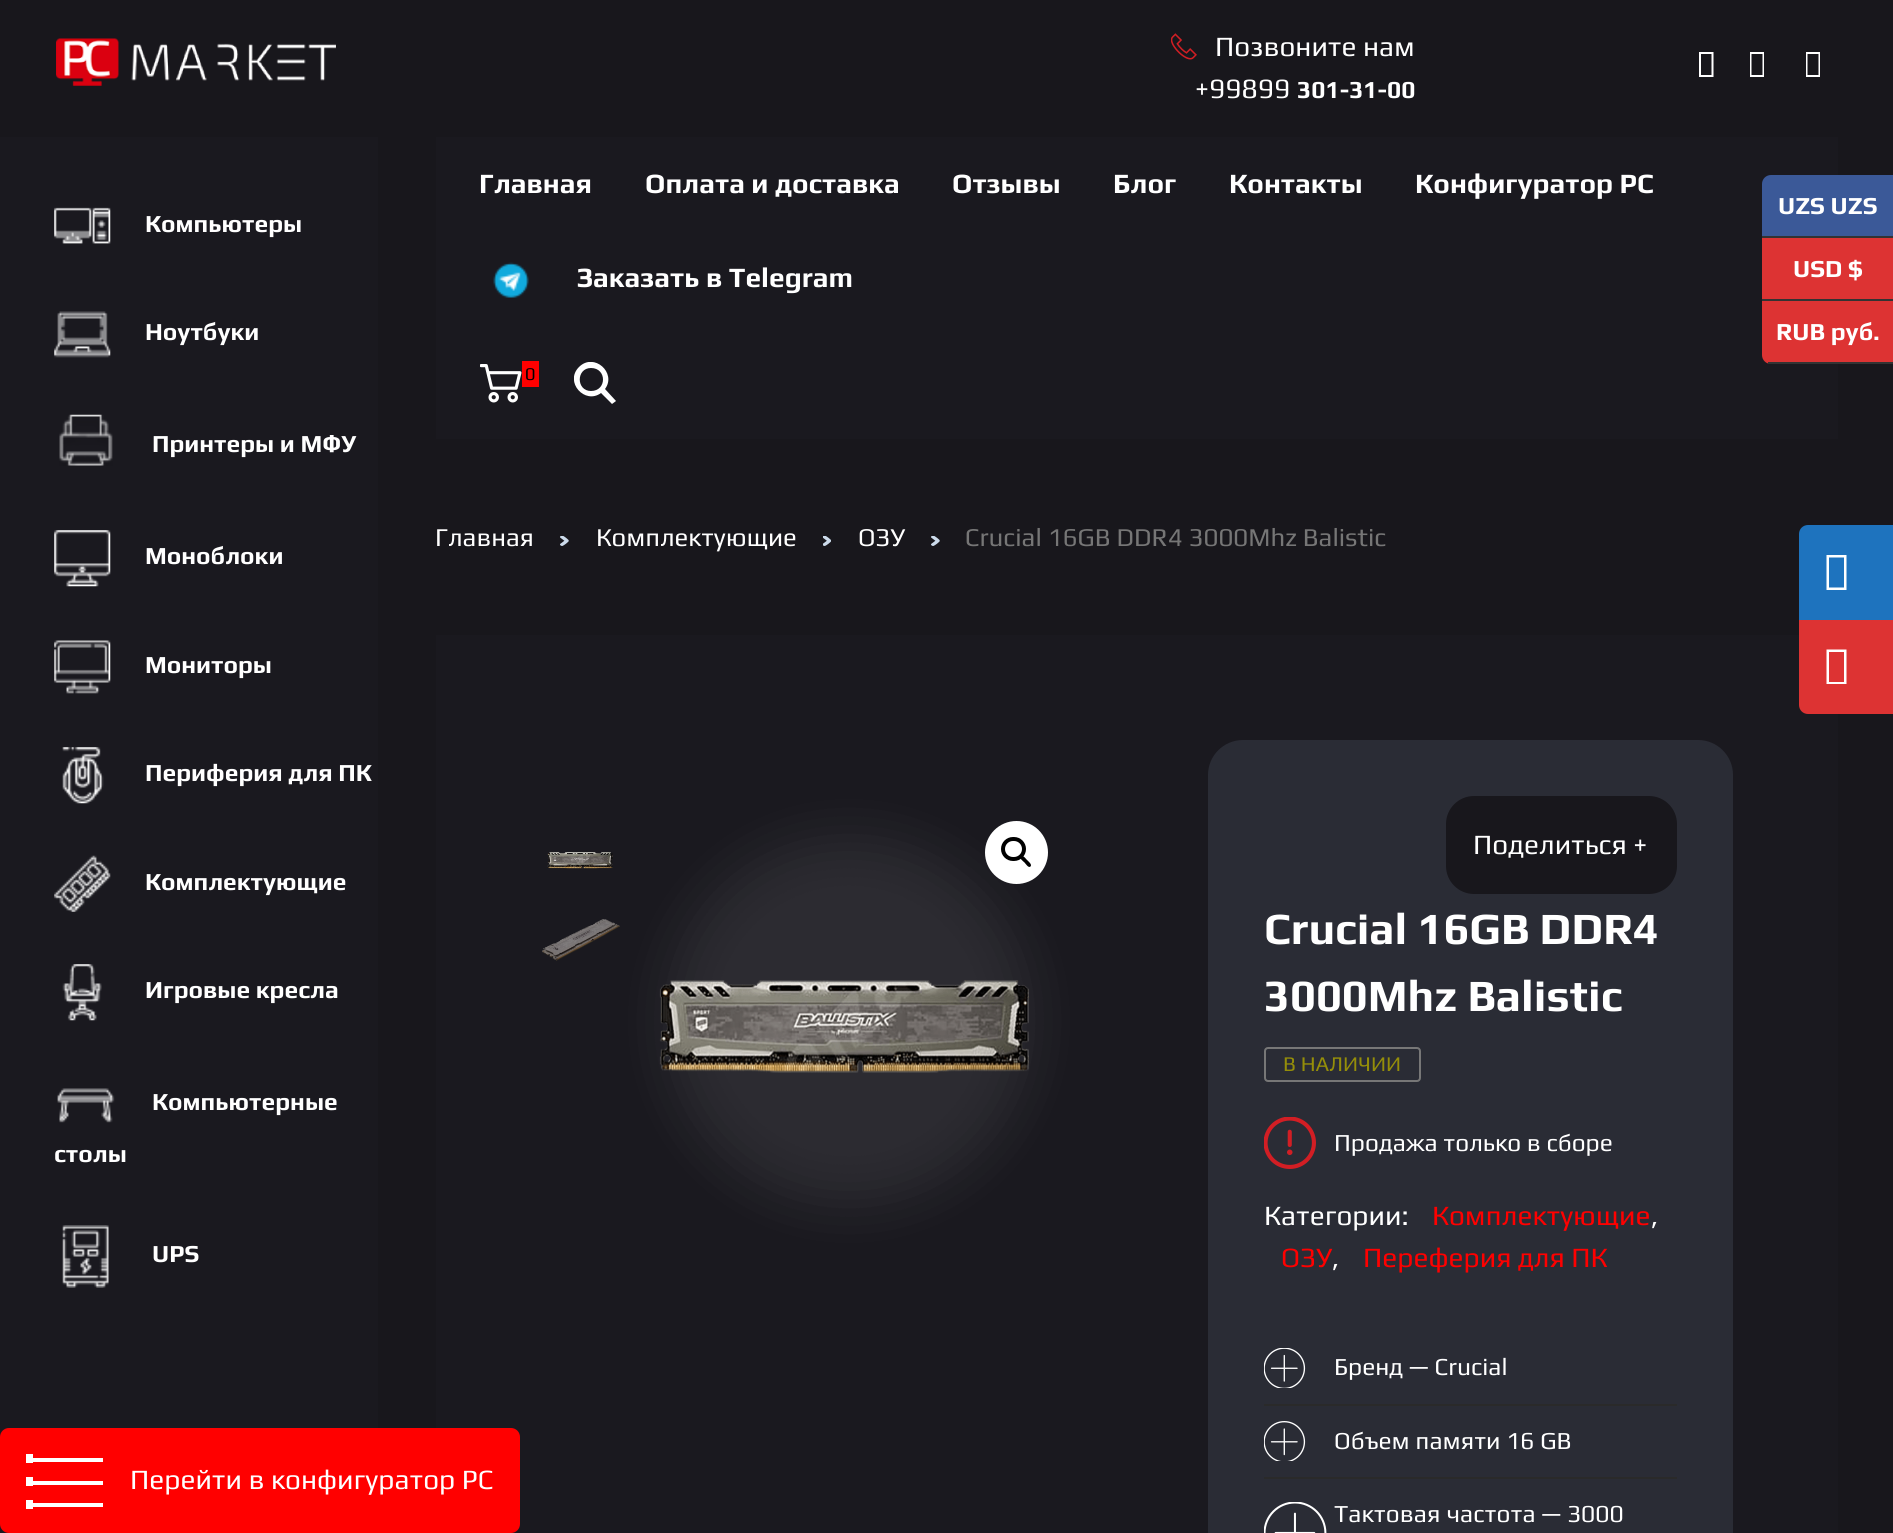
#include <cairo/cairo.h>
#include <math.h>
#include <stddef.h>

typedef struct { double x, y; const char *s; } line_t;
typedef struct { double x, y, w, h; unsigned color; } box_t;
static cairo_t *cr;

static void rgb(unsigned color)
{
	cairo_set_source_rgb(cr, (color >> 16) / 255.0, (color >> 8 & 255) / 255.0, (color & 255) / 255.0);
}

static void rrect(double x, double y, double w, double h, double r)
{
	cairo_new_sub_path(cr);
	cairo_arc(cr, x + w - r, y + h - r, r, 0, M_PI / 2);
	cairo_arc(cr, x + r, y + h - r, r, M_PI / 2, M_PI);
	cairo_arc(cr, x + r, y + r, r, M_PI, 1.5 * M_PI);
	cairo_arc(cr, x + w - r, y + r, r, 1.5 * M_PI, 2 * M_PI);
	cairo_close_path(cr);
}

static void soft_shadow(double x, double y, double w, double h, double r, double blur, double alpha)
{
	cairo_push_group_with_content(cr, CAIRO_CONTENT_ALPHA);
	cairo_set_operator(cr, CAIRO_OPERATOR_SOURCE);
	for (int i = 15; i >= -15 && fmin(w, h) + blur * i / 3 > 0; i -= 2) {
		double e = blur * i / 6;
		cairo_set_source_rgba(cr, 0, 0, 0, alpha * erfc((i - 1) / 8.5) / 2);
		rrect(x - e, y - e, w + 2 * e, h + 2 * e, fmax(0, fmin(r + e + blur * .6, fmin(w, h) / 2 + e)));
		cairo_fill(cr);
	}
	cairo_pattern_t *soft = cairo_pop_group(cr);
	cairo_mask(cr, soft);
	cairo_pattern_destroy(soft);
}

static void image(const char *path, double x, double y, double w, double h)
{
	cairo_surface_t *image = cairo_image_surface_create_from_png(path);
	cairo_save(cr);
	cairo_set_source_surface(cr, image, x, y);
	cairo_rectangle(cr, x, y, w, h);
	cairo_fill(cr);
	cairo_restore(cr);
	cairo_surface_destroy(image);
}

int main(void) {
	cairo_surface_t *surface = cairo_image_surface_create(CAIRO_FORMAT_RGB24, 1893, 1533);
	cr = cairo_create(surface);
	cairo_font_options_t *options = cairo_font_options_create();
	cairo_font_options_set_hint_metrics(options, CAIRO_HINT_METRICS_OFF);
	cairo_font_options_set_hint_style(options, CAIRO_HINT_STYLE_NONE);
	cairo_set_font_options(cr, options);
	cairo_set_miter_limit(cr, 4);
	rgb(0x18171c);
	cairo_paint(cr);
	image("img/1.png", 56, 38, 280, 48);
	image("img/2.png", 1171, 33, 26, 27);
	rgb(0xffffff);
	cairo_new_path(cr);
	cairo_move_to(cr, 1699, 77);
	cairo_line_to(cr, 1699, 52);
	cairo_line_to(cr, 1713.5, 52);
	cairo_line_to(cr, 1713.5, 77);
	cairo_close_path(cr);
	cairo_move_to(cr, 1701, 75);
	cairo_line_to(cr, 1711.5, 75);
	cairo_line_to(cr, 1711.5, 54);
	cairo_line_to(cr, 1701, 54);
	cairo_close_path(cr);
	cairo_fill(cr);
	cairo_new_path(cr);
	cairo_move_to(cr, 1750, 77);
	cairo_line_to(cr, 1750, 52);
	cairo_line_to(cr, 1764, 52);
	cairo_line_to(cr, 1764, 77);
	cairo_close_path(cr);
	cairo_move_to(cr, 1751.5, 75);
	cairo_line_to(cr, 1762.5, 75);
	cairo_line_to(cr, 1762.5, 54);
	cairo_line_to(cr, 1751.5, 54);
	cairo_close_path(cr);
	cairo_fill(cr);
	cairo_new_path(cr);
	cairo_move_to(cr, 1806, 77);
	cairo_line_to(cr, 1806, 52);
	cairo_line_to(cr, 1820, 52);
	cairo_line_to(cr, 1820, 77);
	cairo_close_path(cr);
	cairo_move_to(cr, 1807.5, 75);
	cairo_line_to(cr, 1818.5, 75);
	cairo_line_to(cr, 1818.5, 54);
	cairo_line_to(cr, 1807.5, 54);
	cairo_close_path(cr);
	cairo_fill(cr);
	rgb(0x1a191f);
	cairo_rectangle(cr, 0, 137, 378, 1396);
	cairo_fill(cr);
	image("img/3.png", 54, 207, 57, 37);
	image("img/4.png", 54, 311, 57, 47);
	image("img/5.png", 59, 414, 54, 52);
	image("img/6.png", 54, 530, 57, 57);
	image("img/7.png", 54, 640, 57, 54);
	image("img/8.png", 62, 747, 42, 57);
	image("img/9.png", 54, 855, 57, 57);
	image("img/10.png", 62, 964, 40, 57);
	image("img/11.png", 57, 1088, 58, 35);
	image("img/12.png", 62, 1225, 47, 63);
	cairo_rectangle(cr, 436, 137, 1402, 302);
	cairo_fill(cr);
	image("img/13.png", 493, 262, 36, 36);
	image("img/14.png", 480, 364, 42, 39);
	rgb(0xff0000);
	cairo_rectangle(cr, 522, 361, 17, 26);
	cairo_fill(cr);
	cairo_save(cr);
	cairo_rectangle(cr, 574, 362, 42, 42);
	cairo_clip(cr);
	rgb(0xffffff);
	cairo_new_path(cr);
	cairo_move_to(cr, 605, 389);
	cairo_curve_to(cr, 617, 373, 594, 352, 579, 367);
	cairo_curve_to(cr, 564, 382, 585, 405, 601, 393);
	cairo_line_to(cr, 612, 404);
	cairo_line_to(cr, 616, 401);
	cairo_close_path(cr);
	cairo_move_to(cr, 591, 391);
	cairo_curve_to(cr, 576, 391, 576, 368, 591, 368);
	cairo_curve_to(cr, 607, 368, 607, 391, 591, 391);
	cairo_close_path(cr);
	cairo_fill(cr);
	cairo_restore(cr);
	image("img/15.png", 560, 536, 9, 10);
	image("img/16.png", 823, 536, 8, 10);
	image("img/15.png", 931, 536, 9, 10);
	rgb(0x1a191f);
	cairo_rectangle(cr, 436, 635, 1402, 898);
	cairo_fill(cr);
	rgb(0xffffff);
	soft_shadow(667, 838, 364, 366, 182, 26, 0.08);
	image("img/17.png", 659, 980, 370, 93);
	image("img/18.png", 547, 852, 66, 17);
	image("img/19.png", 542, 919, 78, 42);
	rgb(0xffffff);
	cairo_arc(cr, 1016.5, 852.5, 31.5, 0, 2 * M_PI);
	cairo_fill(cr);
	rrect(1003, 839, 21, 20, 10);
	rgb(0x000000);
	cairo_set_line_width(cr, 4);
	cairo_stroke(cr);
	cairo_new_path(cr);
	cairo_move_to(cr, 1021, 856.5);
	cairo_curve_to(cr, 1023, 854.5, 1026, 859, 1027, 860);
	cairo_curve_to(cr, 1028, 861, 1032.5, 864.5, 1030.5, 866.5);
	cairo_curve_to(cr, 1028.5, 868.5, 1025.5, 863.5, 1024.5, 862.5);
	cairo_curve_to(cr, 1023.5, 861.5, 1019, 858.5, 1021, 856.5);
	cairo_close_path(cr);
	cairo_fill(cr);
	rgb(0x2a2c35);
	rrect(1208, 740, 525, 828, 35);
	cairo_fill(cr);
	rgb(0x18171c);
	rrect(1446, 796, 231, 98, 28);
	cairo_fill(cr);
	rrect(1265, 1048, 155, 33, 3);
	rgb(0x777777);
	cairo_set_line_width(cr, 2);
	cairo_stroke(cr);
	image("img/20.png", 1264, 1117, 52, 52);
	image("img/21.png", 1264, 1348, 42, 40);
	image("img/22.png", 1264, 1421, 42, 40);
	rgb(0x2a2a2a);
	cairo_rectangle(cr, 1264, 1404, 413, 2);
	cairo_fill(cr);
	image("img/23.png", 1264, 1502, 63, 31);
	cairo_rectangle(cr, 1264, 1477, 413, 2);
	cairo_fill(cr);
	rgb(0x3b5998);
	cairo_new_path(cr);
	cairo_move_to(cr, 1771, 175);
	cairo_line_to(cr, 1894, 175);
	cairo_line_to(cr, 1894, 238);
	cairo_line_to(cr, 1762, 238);
	cairo_line_to(cr, 1762, 184);
	cairo_curve_to(cr, 1762, 179, 1766, 175, 1771, 175);
	cairo_close_path(cr);
	cairo_fill(cr);
	{
		static const box_t items[] = {
			{1762, 236, 131, 2, 0x333333},
			{1762, 238, 131, 61, 0xdd3333},
			{1762, 299, 131, 2, 0x333333},
		};
		for (size_t i = 0; i < sizeof items / sizeof *items; i++) {
			rgb(items[i].color);
			cairo_rectangle(cr, items[i].x, items[i].y, items[i].w, items[i].h);
			cairo_fill(cr);
		}
	}
	rgb(0xdd3333);
	cairo_new_path(cr);
	cairo_move_to(cr, 1762, 301);
	cairo_line_to(cr, 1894, 301);
	cairo_line_to(cr, 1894, 364);
	cairo_line_to(cr, 1771, 364);
	cairo_curve_to(cr, 1766, 364, 1762, 360, 1762, 355);
	cairo_close_path(cr);
	cairo_fill(cr);
	rgb(0x333333);
	cairo_rectangle(cr, 1768, 362, 125, 2);
	cairo_fill(cr);
	rgb(0x1e73be);
	cairo_new_path(cr);
	cairo_move_to(cr, 1808, 525);
	cairo_line_to(cr, 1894, 525);
	cairo_line_to(cr, 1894, 620);
	cairo_line_to(cr, 1799, 620);
	cairo_line_to(cr, 1799, 534);
	cairo_curve_to(cr, 1799, 529, 1803, 525, 1808, 525);
	cairo_close_path(cr);
	cairo_fill(cr);
	rgb(0xffffff);
	cairo_new_path(cr);
	cairo_move_to(cr, 1826.5, 590);
	cairo_line_to(cr, 1826.5, 555);
	cairo_line_to(cr, 1846.5, 555);
	cairo_line_to(cr, 1846.5, 590);
	cairo_close_path(cr);
	cairo_move_to(cr, 1829, 587.5);
	cairo_line_to(cr, 1844, 587.5);
	cairo_line_to(cr, 1844, 557.5);
	cairo_line_to(cr, 1829, 557.5);
	cairo_close_path(cr);
	cairo_fill(cr);
	rgb(0xdd3333);
	cairo_new_path(cr);
	cairo_move_to(cr, 1799, 620);
	cairo_line_to(cr, 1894, 620);
	cairo_line_to(cr, 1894, 714);
	cairo_line_to(cr, 1808, 714);
	cairo_curve_to(cr, 1803, 714, 1799, 710, 1799, 705);
	cairo_close_path(cr);
	cairo_fill(cr);
	rgb(0xffffff);
	cairo_new_path(cr);
	cairo_move_to(cr, 1826.5, 684);
	cairo_line_to(cr, 1826.5, 649.5);
	cairo_line_to(cr, 1846.5, 649.5);
	cairo_line_to(cr, 1846.5, 684);
	cairo_close_path(cr);
	cairo_move_to(cr, 1829, 682);
	cairo_line_to(cr, 1844, 682);
	cairo_line_to(cr, 1844, 652);
	cairo_line_to(cr, 1829, 652);
	cairo_close_path(cr);
	cairo_fill(cr);
	rgb(0xff0000);
	rrect(0, 1428, 520, 105, 9);
	cairo_fill(cr);
	{
		static const box_t items[] = {
			{26, 1454, 7, 9, 0xffffff},
			{26, 1458, 77, 4, 0xffffff},
			{26, 1477, 7, 9, 0xffffff},
			{26, 1481, 77, 4, 0xffffff},
			{26, 1500, 7, 9, 0xffffff},
			{26, 1503, 77, 4, 0xffffff},
		};
		for (size_t i = 0; i < sizeof items / sizeof *items; i++) {
			rgb(items[i].color);
			cairo_rectangle(cr, items[i].x, items[i].y, items[i].w, items[i].h);
			cairo_fill(cr);
		}
	}
	cairo_select_font_face(cr, "Play", CAIRO_FONT_SLANT_NORMAL, CAIRO_FONT_WEIGHT_NORMAL);
	cairo_set_font_size(cr, 28);
	cairo_move_to(cr, 1215, 56);
	cairo_show_text(cr, "Позвоните нам");
	cairo_move_to(cr, 1195, 98);
	cairo_show_text(cr, "+99899");
	cairo_select_font_face(cr, "Play", CAIRO_FONT_SLANT_NORMAL, CAIRO_FONT_WEIGHT_BOLD);
	cairo_set_font_size(cr, 24.5);
	{
		static const line_t items[] = {
			{1297, 98, "301-31-00"},
			{145, 232, "Компьютеры"},
			{145, 340, "Ноутбуки"},
			{152, 452, "Принтеры и МФУ"},
			{145, 564, "Моноблоки"},
			{145, 673, "Мониторы"},
			{145, 781, "Периферия для ПК"},
			{145, 890, "Комплектующие"},
			{145, 998, "Игровые кресла"},
			{152, 1110, "Компьютерные"},
			{54, 1162, "столы"},
			{152, 1262, "UPS"},
		};
		for (size_t i = 0; i < sizeof items / sizeof *items; i++) {
			cairo_move_to(cr, items[i].x, items[i].y);
			cairo_show_text(cr, items[i].s);
		}
	}
	cairo_set_font_size(cr, 28);
	{
		static const line_t items[] = {
			{479, 193, "Главная"},
			{645, 193, "Оплата и доставка"},
			{952, 193, "Отзывы"},
			{1113, 193, "Блог"},
			{1229, 193, "Контакты"},
			{1415, 193, "Конфигуратор PC"},
			{577, 287, "Заказать в Telegram"},
		};
		for (size_t i = 0; i < sizeof items / sizeof *items; i++) {
			cairo_move_to(cr, items[i].x, items[i].y);
			cairo_show_text(cr, items[i].s);
		}
	}
	cairo_select_font_face(cr, "Play", CAIRO_FONT_SLANT_NORMAL, CAIRO_FONT_WEIGHT_NORMAL);
	cairo_set_font_size(cr, 18);
	rgb(0x000000);
	cairo_move_to(cr, 525, 380);
	cairo_show_text(cr, "0");
	cairo_set_font_size(cr, 25.75);
	rgb(0xffffff);
	{
		static const line_t items[] = {
			{435, 546, "Главная"},
			{596, 546, "Комплектующие"},
			{858, 546, "ОЗУ"},
		};
		for (size_t i = 0; i < sizeof items / sizeof *items; i++) {
			cairo_move_to(cr, items[i].x, items[i].y);
			cairo_show_text(cr, items[i].s);
		}
	}
	rgb(0x767676);
	cairo_move_to(cr, 965, 546);
	cairo_show_text(cr, "Crucial 16GB DDR4 3000Mhz Balistic");
	cairo_set_font_size(cr, 28);
	rgb(0xffffff);
	cairo_move_to(cr, 1473, 854);
	cairo_show_text(cr, "Поделиться +");
	cairo_select_font_face(cr, "Play", CAIRO_FONT_SLANT_NORMAL, CAIRO_FONT_WEIGHT_BOLD);
	cairo_set_font_size(cr, 44.75);
	cairo_move_to(cr, 1264, 944);
	cairo_show_text(cr, "Crucial 16GB DDR4");
	cairo_move_to(cr, 1264, 1011);
	cairo_show_text(cr, "3000Mhz Balistic");
	cairo_select_font_face(cr, "Play", CAIRO_FONT_SLANT_NORMAL, CAIRO_FONT_WEIGHT_NORMAL);
	cairo_set_font_size(cr, 21);
	rgb(0x958e09);
	cairo_move_to(cr, 1283, 1071);
	cairo_show_text(cr, "В НАЛИЧИИ");
	cairo_set_font_size(cr, 24.5);
	rgb(0xffffff);
	cairo_move_to(cr, 1334, 1151);
	cairo_show_text(cr, "Продажа только в сборе");
	cairo_set_font_size(cr, 28);
	cairo_move_to(cr, 1264, 1225);
	cairo_show_text(cr, "Категории:");
	rgb(0xff0000);
	cairo_move_to(cr, 1432, 1225);
	cairo_show_text(cr, "Комплектующие");
	rgb(0xffffff);
	cairo_move_to(cr, 1651, 1225);
	cairo_show_text(cr, ",");
	rgb(0xff0000);
	cairo_move_to(cr, 1281, 1267);
	cairo_show_text(cr, "ОЗУ");
	rgb(0xffffff);
	cairo_move_to(cr, 1332, 1267);
	cairo_show_text(cr, ",");
	rgb(0xff0000);
	cairo_move_to(cr, 1363, 1267);
	cairo_show_text(cr, "Переферия для ПК");
	cairo_set_font_size(cr, 24.5);
	rgb(0xffffff);
	{
		static const line_t items[] = {
			{1334, 1375, "Бренд — Crucial"},
			{1334, 1449, "Объем памяти 16 GB"},
			{1334, 1522, "Тактовая частота — 3000"},
		};
		for (size_t i = 0; i < sizeof items / sizeof *items; i++) {
			cairo_move_to(cr, items[i].x, items[i].y);
			cairo_show_text(cr, items[i].s);
		}
	}
	cairo_select_font_face(cr, "Play", CAIRO_FONT_SLANT_NORMAL, CAIRO_FONT_WEIGHT_BOLD);
	{
		static const line_t items[] = {
			{1778, 214, "UZS UZS"},
			{1793, 277, "USD $"},
			{1776, 340, "RUB руб."},
		};
		for (size_t i = 0; i < sizeof items / sizeof *items; i++) {
			cairo_move_to(cr, items[i].x, items[i].y);
			cairo_show_text(cr, items[i].s);
		}
	}
	cairo_select_font_face(cr, "Play", CAIRO_FONT_SLANT_NORMAL, CAIRO_FONT_WEIGHT_NORMAL);
	cairo_set_font_size(cr, 28);
	cairo_move_to(cr, 130, 1489);
	cairo_show_text(cr, "Перейти в конфигуратор PC");
	cairo_surface_write_to_png(surface, "page.png");
	cairo_font_options_destroy(options);
	cairo_destroy(cr);
	cairo_surface_destroy(surface);
	return 0;
}
